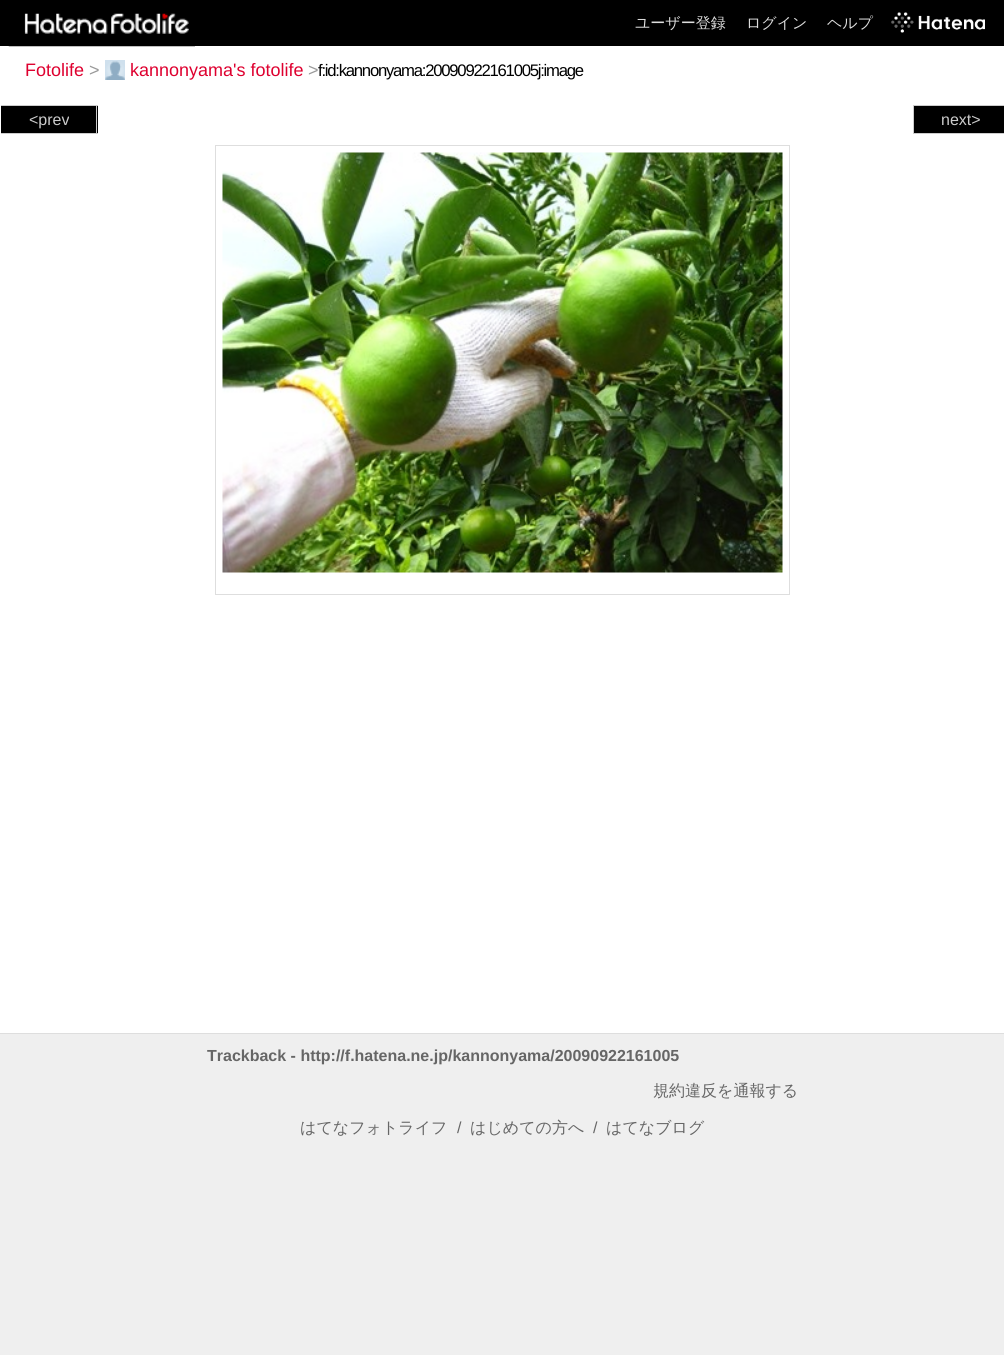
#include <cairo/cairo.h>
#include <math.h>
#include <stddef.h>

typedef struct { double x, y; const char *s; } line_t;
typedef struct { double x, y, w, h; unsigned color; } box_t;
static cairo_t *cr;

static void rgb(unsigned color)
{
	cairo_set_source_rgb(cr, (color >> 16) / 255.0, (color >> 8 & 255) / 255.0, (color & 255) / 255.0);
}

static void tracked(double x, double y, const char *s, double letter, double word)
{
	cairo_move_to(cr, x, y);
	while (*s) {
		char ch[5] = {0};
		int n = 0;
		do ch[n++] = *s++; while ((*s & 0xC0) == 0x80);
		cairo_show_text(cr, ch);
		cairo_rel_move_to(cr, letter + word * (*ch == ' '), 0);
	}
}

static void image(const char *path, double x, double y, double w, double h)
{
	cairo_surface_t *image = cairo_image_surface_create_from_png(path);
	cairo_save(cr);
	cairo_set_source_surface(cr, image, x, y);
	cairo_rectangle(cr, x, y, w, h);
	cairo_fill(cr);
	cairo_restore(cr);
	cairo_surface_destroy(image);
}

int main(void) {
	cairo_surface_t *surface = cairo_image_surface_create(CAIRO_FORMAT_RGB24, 1004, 1355);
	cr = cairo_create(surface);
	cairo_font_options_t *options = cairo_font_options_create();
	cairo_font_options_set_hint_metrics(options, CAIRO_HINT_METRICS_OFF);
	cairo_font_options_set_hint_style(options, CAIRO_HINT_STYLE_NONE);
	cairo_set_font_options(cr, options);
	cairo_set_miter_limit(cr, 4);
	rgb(0xefefef);
	cairo_paint(cr);
	rgb(0x000000);
	cairo_rectangle(cr, 0, 0, 1004, 46);
	cairo_fill(cr);
	rgb(0xffffff);
	cairo_rectangle(cr, 0, 46, 1004, 987);
	cairo_fill(cr);
	image("img/1.png", 8, 13, 104, 34);
	image("img/2.png", 111, 13, 84, 34);
	image("img/3.png", 891, 12, 94, 21);
	image("img/4.png", 105, 60, 20, 20);
	{
		static const box_t items[] = {
			{0, 1033, 1004, 1, 0xdedede},
			{1, 106, 97, 27, 0x000000},
			{1, 105, 97, 1, 0xcccccc},
			{96, 105, 1, 29, 0xcccccc},
			{1, 133, 97, 1, 0xcccccc},
			{914, 106, 90, 27, 0x000000},
			{913, 105, 91, 1, 0xcccccc},
			{913, 133, 91, 1, 0xcccccc},
			{913, 105, 1, 29, 0xcccccc},
		};
		for (size_t i = 0; i < sizeof items / sizeof *items; i++) {
			rgb(items[i].color);
			cairo_rectangle(cr, items[i].x, items[i].y, items[i].w, items[i].h);
			cairo_fill(cr);
		}
	}
	cairo_rectangle(cr, 215.5, 145.5, 574, 449);
	rgb(0xdedede);
	cairo_set_line_width(cr, 1);
	cairo_stroke(cr);
	image("img/5.png", 222, 152, 561, 421);
	cairo_select_font_face(cr, "WenQuanYi Zen Hei Medium", CAIRO_FONT_SLANT_NORMAL, CAIRO_FONT_WEIGHT_NORMAL);
	cairo_set_font_size(cr, 15);
	rgb(0xdddddd);
	{
		static const line_t items[] = {
			{635, 28, "ユーザー登録"},
			{746, 28, "ログイン"},
			{827, 28, "ヘルプ"},
		};
		for (size_t i = 0; i < sizeof items / sizeof *items; i++) {
			cairo_move_to(cr, items[i].x, items[i].y);
			cairo_show_text(cr, items[i].s);
		}
	}
	cairo_select_font_face(cr, "Liberation Sans", CAIRO_FONT_SLANT_NORMAL, CAIRO_FONT_WEIGHT_NORMAL);
	cairo_set_font_size(cr, 18);
	rgb(0xde002f);
	cairo_move_to(cr, 25, 76);
	cairo_show_text(cr, "Fotolife");
	rgb(0x999999);
	cairo_move_to(cr, 89, 76);
	cairo_show_text(cr, ">");
	rgb(0xde002f);
	cairo_move_to(cr, 130, 76);
	cairo_show_text(cr, "kannonyama's fotolife");
	rgb(0x999999);
	cairo_move_to(cr, 308, 76);
	cairo_show_text(cr, ">");
	cairo_set_font_size(cr, 16.7);
	rgb(0x000000);
	tracked(318, 76, "f:id:kannonyama:20090922161005j:image", -1.25, 0);
	cairo_set_font_size(cr, 16);
	rgb(0xcccccc);
	cairo_move_to(cr, 29, 125);
	cairo_show_text(cr, "<prev");
	cairo_move_to(cr, 941, 125);
	cairo_show_text(cr, "next>");
	cairo_select_font_face(cr, "Liberation Sans", CAIRO_FONT_SLANT_NORMAL, CAIRO_FONT_WEIGHT_BOLD);
	rgb(0x666666);
	cairo_move_to(cr, 207, 1061);
	cairo_show_text(cr, "Trackback - http://f.hatena.ne.jp/kannonyama/20090922161005");
	cairo_select_font_face(cr, "WenQuanYi Zen Hei Medium", CAIRO_FONT_SLANT_NORMAL, CAIRO_FONT_WEIGHT_NORMAL);
	cairo_move_to(cr, 653, 1096);
	cairo_show_text(cr, "規約違反を通報する");
	cairo_move_to(cr, 300, 1133);
	cairo_show_text(cr, "はてなフォトライフ");
	cairo_select_font_face(cr, "Liberation Sans", CAIRO_FONT_SLANT_NORMAL, CAIRO_FONT_WEIGHT_NORMAL);
	cairo_move_to(cr, 457, 1133);
	cairo_show_text(cr, "/");
	cairo_select_font_face(cr, "WenQuanYi Zen Hei Medium", CAIRO_FONT_SLANT_NORMAL, CAIRO_FONT_WEIGHT_NORMAL);
	cairo_move_to(cr, 470, 1133);
	cairo_show_text(cr, "はじめての方へ");
	cairo_select_font_face(cr, "Liberation Sans", CAIRO_FONT_SLANT_NORMAL, CAIRO_FONT_WEIGHT_NORMAL);
	cairo_move_to(cr, 593, 1133);
	cairo_show_text(cr, "/");
	cairo_select_font_face(cr, "WenQuanYi Zen Hei Medium", CAIRO_FONT_SLANT_NORMAL, CAIRO_FONT_WEIGHT_NORMAL);
	cairo_move_to(cr, 606, 1133);
	cairo_show_text(cr, "はてなブログ");
	cairo_surface_write_to_png(surface, "page.png");
	cairo_font_options_destroy(options);
	cairo_destroy(cr);
	cairo_surface_destroy(surface);
	return 0;
}
